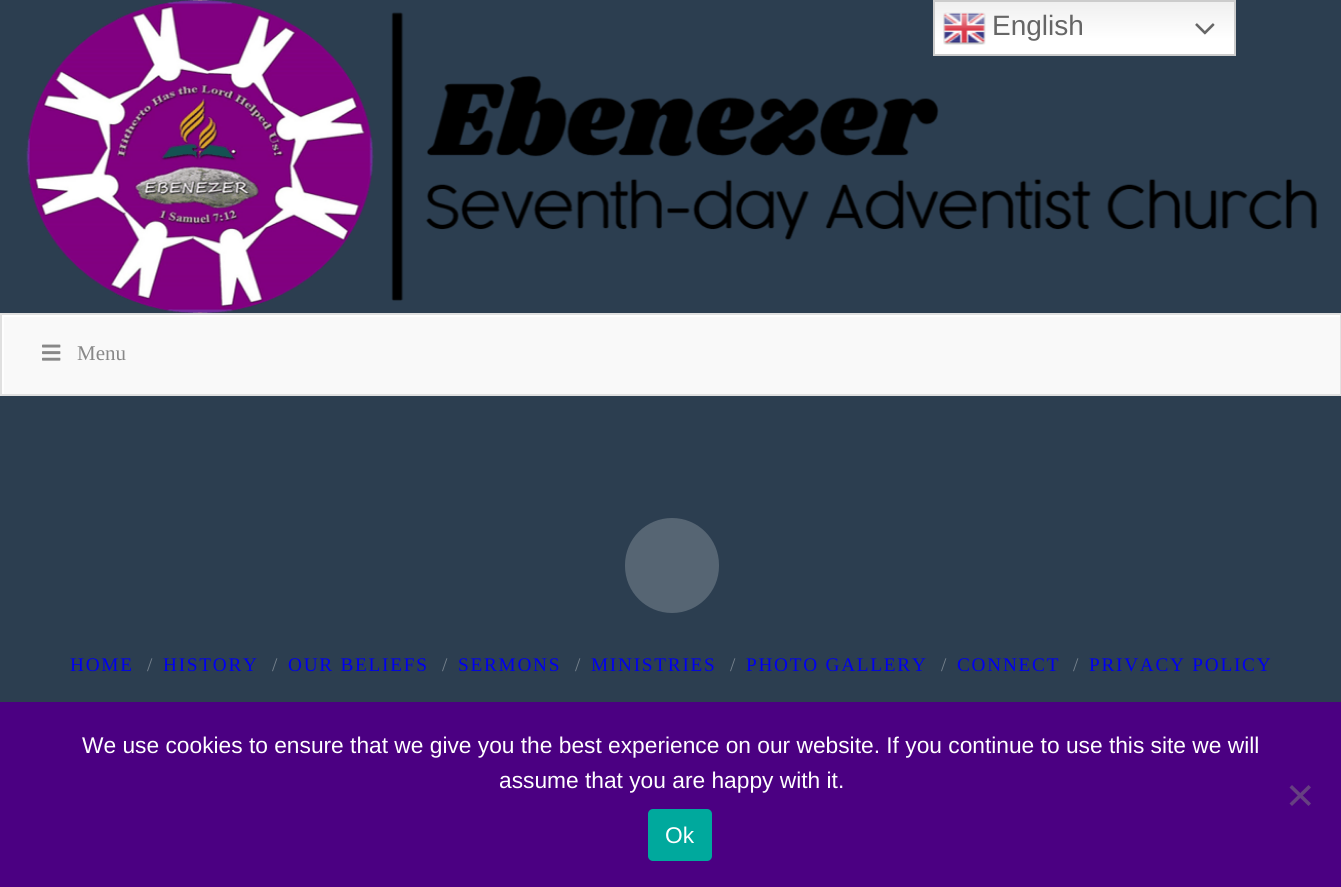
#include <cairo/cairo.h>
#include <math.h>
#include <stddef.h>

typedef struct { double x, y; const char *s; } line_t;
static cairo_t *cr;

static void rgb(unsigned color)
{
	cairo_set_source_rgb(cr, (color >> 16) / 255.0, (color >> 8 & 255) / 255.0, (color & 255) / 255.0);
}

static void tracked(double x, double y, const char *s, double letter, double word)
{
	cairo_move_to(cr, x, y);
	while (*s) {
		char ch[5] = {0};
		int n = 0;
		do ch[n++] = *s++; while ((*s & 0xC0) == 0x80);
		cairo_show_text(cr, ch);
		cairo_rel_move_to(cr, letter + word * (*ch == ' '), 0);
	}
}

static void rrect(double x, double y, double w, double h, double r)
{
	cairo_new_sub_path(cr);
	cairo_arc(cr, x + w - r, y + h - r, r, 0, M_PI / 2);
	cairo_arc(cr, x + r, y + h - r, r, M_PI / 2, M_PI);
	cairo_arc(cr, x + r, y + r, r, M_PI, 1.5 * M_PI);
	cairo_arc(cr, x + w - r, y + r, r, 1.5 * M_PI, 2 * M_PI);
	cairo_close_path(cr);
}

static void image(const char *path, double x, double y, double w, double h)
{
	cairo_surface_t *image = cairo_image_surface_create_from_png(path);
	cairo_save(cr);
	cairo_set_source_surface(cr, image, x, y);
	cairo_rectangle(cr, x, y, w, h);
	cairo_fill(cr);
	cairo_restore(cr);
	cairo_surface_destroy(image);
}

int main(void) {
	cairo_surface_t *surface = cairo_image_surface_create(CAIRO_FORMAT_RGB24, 1341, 887);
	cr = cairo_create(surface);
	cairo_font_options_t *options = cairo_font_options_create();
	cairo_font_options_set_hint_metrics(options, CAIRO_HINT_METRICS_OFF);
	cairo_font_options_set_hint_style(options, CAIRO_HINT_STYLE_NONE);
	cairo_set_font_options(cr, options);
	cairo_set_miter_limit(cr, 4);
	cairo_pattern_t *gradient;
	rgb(0x2c3e50);
	cairo_paint(cr);
	image("img/3.png", 26, 0, 1291, 313);
	gradient = cairo_pattern_create_linear(1084, 0, 1084, 56);
	cairo_pattern_add_color_stop_rgba(gradient, 0, 0.937, 0.937, 0.937, 1);
	cairo_pattern_add_color_stop_rgba(gradient, 0.7, 1, 1, 1, 1);
	cairo_set_source(cr, gradient);
	cairo_pattern_destroy(gradient);
	cairo_rectangle(cr, 935, 2, 299, 52);
	cairo_fill(cr);
	cairo_rectangle(cr, 934, 1, 301, 54);
	rgb(0xcccccc);
	cairo_stroke(cr);
	image("img/1.png", 943, 12, 43, 33);
	image("img/2.png", 1195, 23, 20, 12);
	rgb(0xf9f9f9);
	cairo_rectangle(cr, 4, 317, 1336, 77);
	cairo_fill(cr);
	cairo_save(cr);
	cairo_rectangle(cr, 2, 315, 1339, 79);
	cairo_clip(cr);
	rgb(0xfefefe);
	cairo_set_fill_rule(cr, CAIRO_FILL_RULE_EVEN_ODD);
	cairo_new_path(cr);
	cairo_move_to(cr, -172, 142);
	cairo_line_to(cr, 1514, 142);
	cairo_line_to(cr, 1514, 567);
	cairo_line_to(cr, -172, 567);
	cairo_close_path(cr);
	cairo_move_to(cr, 4, 317);
	cairo_line_to(cr, 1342, 317);
	cairo_line_to(cr, 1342, 396);
	cairo_line_to(cr, 4, 396);
	cairo_close_path(cr);
	cairo_fill(cr);
	cairo_restore(cr);
	cairo_rectangle(cr, 1, 314, 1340, 81);
	rgb(0xe0e0e0);
	cairo_stroke(cr);
	image("img/4.png", 42, 344, 19, 17);
	rgb(0x566573);
	rrect(625, 518, 94, 95, 47);
	cairo_fill(cr);
	rgb(0x4b0082);
	cairo_rectangle(cr, 0, 702, 1341, 185);
	cairo_fill(cr);
	rgb(0x664081);
	cairo_new_path(cr);
	cairo_move_to(cr, 1308.5, 785);
	cairo_line_to(cr, 1311, 787.5);
	cairo_line_to(cr, 1292, 806);
	cairo_line_to(cr, 1289.5, 803.5);
	cairo_close_path(cr);
	cairo_fill(cr);
	cairo_new_path(cr);
	cairo_move_to(cr, 1289.5, 787.5);
	cairo_line_to(cr, 1292, 785);
	cairo_line_to(cr, 1311, 803.5);
	cairo_line_to(cr, 1308.5, 806);
	cairo_close_path(cr);
	cairo_fill(cr);
	rgb(0x00a99d);
	rrect(648, 809, 64, 52, 5);
	cairo_fill(cr);
	cairo_select_font_face(cr, "Liberation Sans", CAIRO_FONT_SLANT_NORMAL, CAIRO_FONT_WEIGHT_NORMAL);
	cairo_set_font_size(cr, 28);
	rgb(0x666666);
	cairo_move_to(cr, 992, 35);
	cairo_show_text(cr, "English");
	cairo_select_font_face(cr, "Liberation Serif", CAIRO_FONT_SLANT_NORMAL, CAIRO_FONT_WEIGHT_NORMAL);
	cairo_set_font_size(cr, 21);
	rgb(0x888888);
	cairo_move_to(cr, 77, 360);
	cairo_show_text(cr, "Menu");
	cairo_set_font_size(cr, 19.25);
	rgb(0x0000ee);
	tracked(70, 671, "HOME", 1.75, 0);
	rgb(0x76828d);
	cairo_move_to(cr, 147, 671);
	cairo_show_text(cr, "/");
	rgb(0x0000ee);
	tracked(163, 671, "HISTORY", 1.75, 0);
	rgb(0x76828d);
	cairo_move_to(cr, 272, 671);
	cairo_show_text(cr, "/");
	rgb(0x0000ee);
	tracked(288, 671, "OUR BELIEFS", 1.75, 0);
	rgb(0x76828d);
	cairo_move_to(cr, 442, 671);
	cairo_show_text(cr, "/");
	rgb(0x0000ee);
	tracked(458, 671, "SERMONS", 1.75, 0);
	rgb(0x76828d);
	cairo_move_to(cr, 575, 671);
	cairo_show_text(cr, "/");
	rgb(0x0000ee);
	tracked(591, 671, "MINISTRIES", 1.75, 0);
	rgb(0x76828d);
	cairo_move_to(cr, 730, 671);
	cairo_show_text(cr, "/");
	rgb(0x0000ee);
	tracked(746, 671, "PHOTO GALLERY", 1.75, 0);
	rgb(0x76828d);
	cairo_move_to(cr, 941, 671);
	cairo_show_text(cr, "/");
	rgb(0x0000ee);
	tracked(957, 671, "CONNECT", 1.75, 0);
	rgb(0x76828d);
	cairo_move_to(cr, 1073, 671);
	cairo_show_text(cr, "/");
	rgb(0x0000ee);
	tracked(1089, 671, "PRIVACY POLICY", 1.75, 0);
	cairo_select_font_face(cr, "Liberation Sans", CAIRO_FONT_SLANT_NORMAL, CAIRO_FONT_WEIGHT_NORMAL);
	cairo_set_font_size(cr, 22.75);
	rgb(0xffffff);
	{
		static const line_t items[] = {
			{82, 753, "We use cookies to ensure that we give you the best experience on our website. If you continue to use this site we will"},
			{499, 788, "assume that you are happy with it."},
			{665, 843, "Ok"},
		};
		for (size_t i = 0; i < sizeof items / sizeof *items; i++) {
			cairo_move_to(cr, items[i].x, items[i].y);
			cairo_show_text(cr, items[i].s);
		}
	}
	cairo_surface_write_to_png(surface, "page.png");
	cairo_font_options_destroy(options);
	cairo_destroy(cr);
	cairo_surface_destroy(surface);
	return 0;
}
